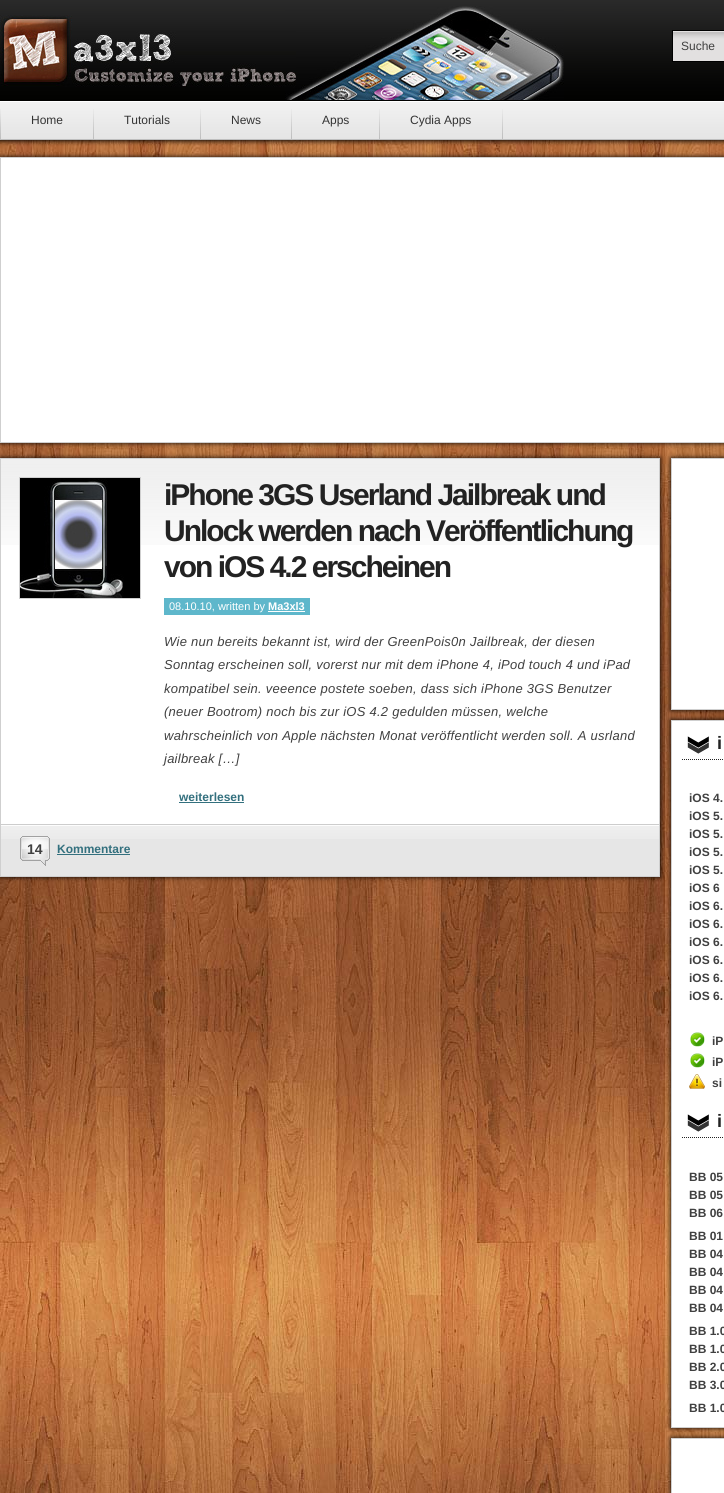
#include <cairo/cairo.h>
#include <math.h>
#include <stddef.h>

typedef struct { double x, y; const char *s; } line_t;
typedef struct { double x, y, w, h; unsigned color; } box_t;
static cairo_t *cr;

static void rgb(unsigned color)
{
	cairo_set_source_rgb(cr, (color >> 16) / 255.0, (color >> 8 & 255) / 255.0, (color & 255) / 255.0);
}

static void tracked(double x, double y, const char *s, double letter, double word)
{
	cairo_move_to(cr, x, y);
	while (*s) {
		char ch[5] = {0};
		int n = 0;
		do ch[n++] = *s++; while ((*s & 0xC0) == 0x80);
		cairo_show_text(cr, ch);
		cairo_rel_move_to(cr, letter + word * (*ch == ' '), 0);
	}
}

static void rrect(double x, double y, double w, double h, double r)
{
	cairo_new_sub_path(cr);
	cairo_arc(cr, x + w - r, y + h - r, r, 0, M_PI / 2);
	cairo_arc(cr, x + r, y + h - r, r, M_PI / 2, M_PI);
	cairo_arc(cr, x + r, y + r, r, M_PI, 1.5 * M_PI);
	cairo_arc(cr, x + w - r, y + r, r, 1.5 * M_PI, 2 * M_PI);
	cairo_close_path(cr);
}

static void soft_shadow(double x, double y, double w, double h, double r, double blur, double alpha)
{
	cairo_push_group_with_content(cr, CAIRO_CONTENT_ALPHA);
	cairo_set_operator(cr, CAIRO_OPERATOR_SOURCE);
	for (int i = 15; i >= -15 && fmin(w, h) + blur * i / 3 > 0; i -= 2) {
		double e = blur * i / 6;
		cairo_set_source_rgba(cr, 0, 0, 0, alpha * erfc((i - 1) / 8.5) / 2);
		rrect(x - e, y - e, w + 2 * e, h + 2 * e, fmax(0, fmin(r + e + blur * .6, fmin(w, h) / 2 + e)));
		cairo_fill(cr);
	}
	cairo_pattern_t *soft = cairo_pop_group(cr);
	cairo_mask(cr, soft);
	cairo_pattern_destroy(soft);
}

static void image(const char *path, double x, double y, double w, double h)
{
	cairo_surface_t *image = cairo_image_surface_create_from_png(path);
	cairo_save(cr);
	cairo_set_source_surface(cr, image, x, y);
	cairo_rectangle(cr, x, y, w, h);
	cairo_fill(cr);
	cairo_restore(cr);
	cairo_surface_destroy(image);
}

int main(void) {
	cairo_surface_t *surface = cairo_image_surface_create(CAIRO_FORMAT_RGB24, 724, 1493);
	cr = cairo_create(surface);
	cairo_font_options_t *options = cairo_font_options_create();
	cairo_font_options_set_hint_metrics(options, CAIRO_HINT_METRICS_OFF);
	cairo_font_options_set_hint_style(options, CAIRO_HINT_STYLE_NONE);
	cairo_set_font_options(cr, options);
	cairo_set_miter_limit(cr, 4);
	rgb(0xffffff);
	cairo_paint(cr);
	image("img/1.png", 0, 140, 724, 1353);
	image("img/2.png", 0, 0, 724, 146);
	image("img/3.png", 285, 6, 279, 94);
	image("img/4.png", 0, 15, 296, 72);
	image("img/5.png", 673, 31, 51, 30);
	cairo_rectangle(cr, 672.5, 30.5, 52, 31);
	rgb(0x000000);
	cairo_set_line_width(cr, 1);
	cairo_stroke(cr);
	image("img/6.png", 0, 109, 1, 30);
	image("img/6.png", 93, 109, 1, 30);
	image("img/6.png", 200, 109, 1, 30);
	image("img/6.png", 291, 109, 1, 30);
	image("img/6.png", 379, 109, 1, 30);
	image("img/6.png", 502, 109, 1, 30);
	rgb(0x000000);
	soft_shadow(0, 157, 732, 286, 0, 2.5, 1);
	rgb(0xffffff);
	cairo_rectangle(cr, 0.5, 157.5, 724, 285);
	cairo_fill_preserve(cr);
	rgb(0xcfcfcf);
	cairo_stroke(cr);
	rgb(0x000000);
	soft_shadow(0, 458, 660, 419, 0, 2.5, 1);
	rgb(0xffffff);
	cairo_rectangle(cr, 1, 545, 658, 279);
	cairo_fill(cr);
	cairo_rectangle(cr, 0.5, 458.5, 659, 418);
	rgb(0xcfcfcf);
	cairo_stroke(cr);
	image("img/7.png", 1, 459, 658, 86);
	cairo_rectangle(cr, 19.5, 477.5, 121, 121);
	cairo_stroke(cr);
	image("img/8.png", 20, 478, 120, 120);
	{
		static const box_t items[] = {
			{164, 598, 146, 17, 0x5eb7cb},
			{268, 611, 37, 1, 0xffffff},
			{179, 802, 65, 1, 0x33707e},
			{1, 839, 658, 37, 0xe6e6e6},
		};
		for (size_t i = 0; i < sizeof items / sizeof *items; i++) {
			rgb(items[i].color);
			cairo_rectangle(cr, items[i].x, items[i].y, items[i].w, items[i].h);
			cairo_fill(cr);
		}
	}
	image("img/9.png", 1, 824, 658, 15);
	image("img/10.png", 20, 836, 30, 30);
	rgb(0x33707e);
	cairo_rectangle(cr, 57, 854, 73, 1);
	cairo_fill(cr);
	rgb(0x000000);
	soft_shadow(671, 458, 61, 252, 0, 2.5, 1);
	rgb(0xffffff);
	cairo_rectangle(cr, 671.5, 458.5, 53, 251);
	cairo_fill_preserve(cr);
	rgb(0xcfcfcf);
	cairo_stroke(cr);
	rgb(0x000000);
	soft_shadow(671, 720, 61, 708, 0, 2.5, 1);
	rgb(0xffffff);
	cairo_rectangle(cr, 671.5, 720.5, 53, 707);
	cairo_fill_preserve(cr);
	rgb(0xcfcfcf);
	cairo_stroke(cr);
	cairo_new_path(cr);
	cairo_move_to(cr, 682, 759.5);
	cairo_line_to(cr, 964, 759.5);
	rgb(0x222222);
	cairo_set_dash(cr, (double[]){1, 1}, 2, 0);
	cairo_stroke(cr);
	image("img/11.png", 687, 736, 22, 18);
	image("img/12.png", 690, 1032, 15, 15);
	image("img/12.png", 690, 1053, 15, 15);
	image("img/13.png", 689, 1074, 16, 15);
	cairo_new_path(cr);
	cairo_move_to(cr, 682, 1137.5);
	cairo_line_to(cr, 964, 1137.5);
	cairo_stroke(cr);
	image("img/11.png", 687, 1114, 22, 18);
	rgb(0x000000);
	soft_shadow(671, 1438, 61, 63, 0, 2.5, 1);
	rgb(0xffffff);
	cairo_rectangle(cr, 671.5, 1438.5, 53, 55);
	cairo_fill_preserve(cr);
	rgb(0xcfcfcf);
	cairo_set_dash(cr, NULL, 0, 0);
	cairo_stroke(cr);
	cairo_select_font_face(cr, "Liberation Sans", CAIRO_FONT_SLANT_NORMAL, CAIRO_FONT_WEIGHT_NORMAL);
	cairo_set_font_size(cr, 12);
	rgb(0x404040);
	cairo_move_to(cr, 681, 50);
	cairo_show_text(cr, "Suche");
	rgb(0x333333);
	{
		static const line_t items[] = {
			{31, 124, "Home"},
			{124, 124, "Tutorials"},
			{231, 124, "News"},
			{322, 124, "Apps"},
			{410, 124, "Cydia Apps"},
		};
		for (size_t i = 0; i < sizeof items / sizeof *items; i++) {
			cairo_move_to(cr, items[i].x, items[i].y);
			cairo_show_text(cr, items[i].s);
		}
	}
	cairo_select_font_face(cr, "Liberation Sans", CAIRO_FONT_SLANT_NORMAL, CAIRO_FONT_WEIGHT_BOLD);
	cairo_set_font_size(cr, 30);
	rgb(0x222222);
	{
		static const line_t items[] = {
			{164, 505, "iPhone 3GS Userland Jailbreak und"},
			{164, 541, "Unlock werden nach Veröffentlichung"},
			{164, 577, "von iOS 4.2 erscheinen"},
		};
		for (size_t i = 0; i < sizeof items / sizeof *items; i++) {
			tracked(items[i].x, items[i].y, items[i].s, -2, 0);
		}
	}
	cairo_select_font_face(cr, "Liberation Sans", CAIRO_FONT_SLANT_NORMAL, CAIRO_FONT_WEIGHT_NORMAL);
	cairo_set_font_size(cr, 11);
	rgb(0xffffff);
	cairo_move_to(cr, 169, 610);
	cairo_show_text(cr, "08.10.10, written by");
	cairo_select_font_face(cr, "Liberation Sans", CAIRO_FONT_SLANT_NORMAL, CAIRO_FONT_WEIGHT_BOLD);
	cairo_move_to(cr, 268, 610);
	cairo_show_text(cr, "Ma3xl3");
	cairo_select_font_face(cr, "Liberation Sans", CAIRO_FONT_SLANT_ITALIC, CAIRO_FONT_WEIGHT_NORMAL);
	cairo_set_font_size(cr, 13);
	rgb(0x404040);
	{
		static const line_t items[] = {
			{164, 646, "Wie nun bereits bekannt ist, wird der GreenPois0n Jailbreak, der diesen"},
			{164, 669, "Sonntag erscheinen soll, vorerst nur mit dem iPhone 4, iPod touch 4 und iPad"},
			{164, 693, "kompatibel sein. veeence postete soeben, dass sich iPhone 3GS Benutzer"},
			{164, 716, "(neuer Bootrom) noch bis zur iOS 4.2 gedulden müssen, welche"},
			{164, 740, "wahrscheinlich von Apple nächsten Monat veröffentlicht werden soll. A usrland"},
			{164, 763, "jailbreak […]"},
		};
		for (size_t i = 0; i < sizeof items / sizeof *items; i++) {
			tracked(items[i].x, items[i].y, items[i].s, 0.25, 0);
		}
	}
	cairo_select_font_face(cr, "Liberation Sans", CAIRO_FONT_SLANT_NORMAL, CAIRO_FONT_WEIGHT_BOLD);
	cairo_set_font_size(cr, 12);
	rgb(0x33707e);
	cairo_move_to(cr, 179, 801);
	cairo_show_text(cr, "weiterlesen");
	cairo_set_font_size(cr, 14);
	rgb(0x404040);
	cairo_move_to(cr, 27, 854);
	cairo_show_text(cr, "14");
	cairo_set_font_size(cr, 12);
	rgb(0x33707e);
	cairo_move_to(cr, 57, 853);
	cairo_show_text(cr, "Kommentare");
	cairo_set_font_size(cr, 18);
	rgb(0x222222);
	cairo_move_to(cr, 717, 749);
	cairo_show_text(cr, "i");
	cairo_set_font_size(cr, 12);
	rgb(0x404040);
	{
		static const line_t items[] = {
			{689, 802, "iOS 4."},
			{689, 820, "iOS 5."},
			{689, 838, "iOS 5."},
			{689, 856, "iOS 5."},
			{689, 874, "iOS 5."},
			{689, 892, "iOS 6"},
			{689, 910, "iOS 6."},
			{689, 928, "iOS 6."},
			{689, 946, "iOS 6."},
			{689, 964, "iOS 6."},
			{689, 982, "iOS 6."},
			{689, 1000, "iOS 6."},
			{712, 1045, "iP"},
			{712, 1066, "iP"},
			{712, 1087, "si"},
		};
		for (size_t i = 0; i < sizeof items / sizeof *items; i++) {
			cairo_move_to(cr, items[i].x, items[i].y);
			cairo_show_text(cr, items[i].s);
		}
	}
	cairo_set_font_size(cr, 18);
	rgb(0x222222);
	cairo_move_to(cr, 717, 1127);
	cairo_show_text(cr, "i");
	cairo_set_font_size(cr, 12);
	rgb(0x404040);
	{
		static const line_t items[] = {
			{689, 1181, "BB 05"},
			{689, 1199, "BB 05"},
			{689, 1217, "BB 06"},
			{689, 1240, "BB 01"},
			{689, 1258, "BB 04"},
			{689, 1276, "BB 04"},
			{689, 1294, "BB 04"},
			{689, 1312, "BB 04"},
			{689, 1335, "BB 1.0"},
			{689, 1353, "BB 1.0"},
			{689, 1371, "BB 2.0"},
			{689, 1389, "BB 3.0"},
			{689, 1412, "BB 1.0"},
		};
		for (size_t i = 0; i < sizeof items / sizeof *items; i++) {
			cairo_move_to(cr, items[i].x, items[i].y);
			cairo_show_text(cr, items[i].s);
		}
	}
	cairo_surface_write_to_png(surface, "page.png");
	cairo_font_options_destroy(options);
	cairo_destroy(cr);
	cairo_surface_destroy(surface);
	return 0;
}
